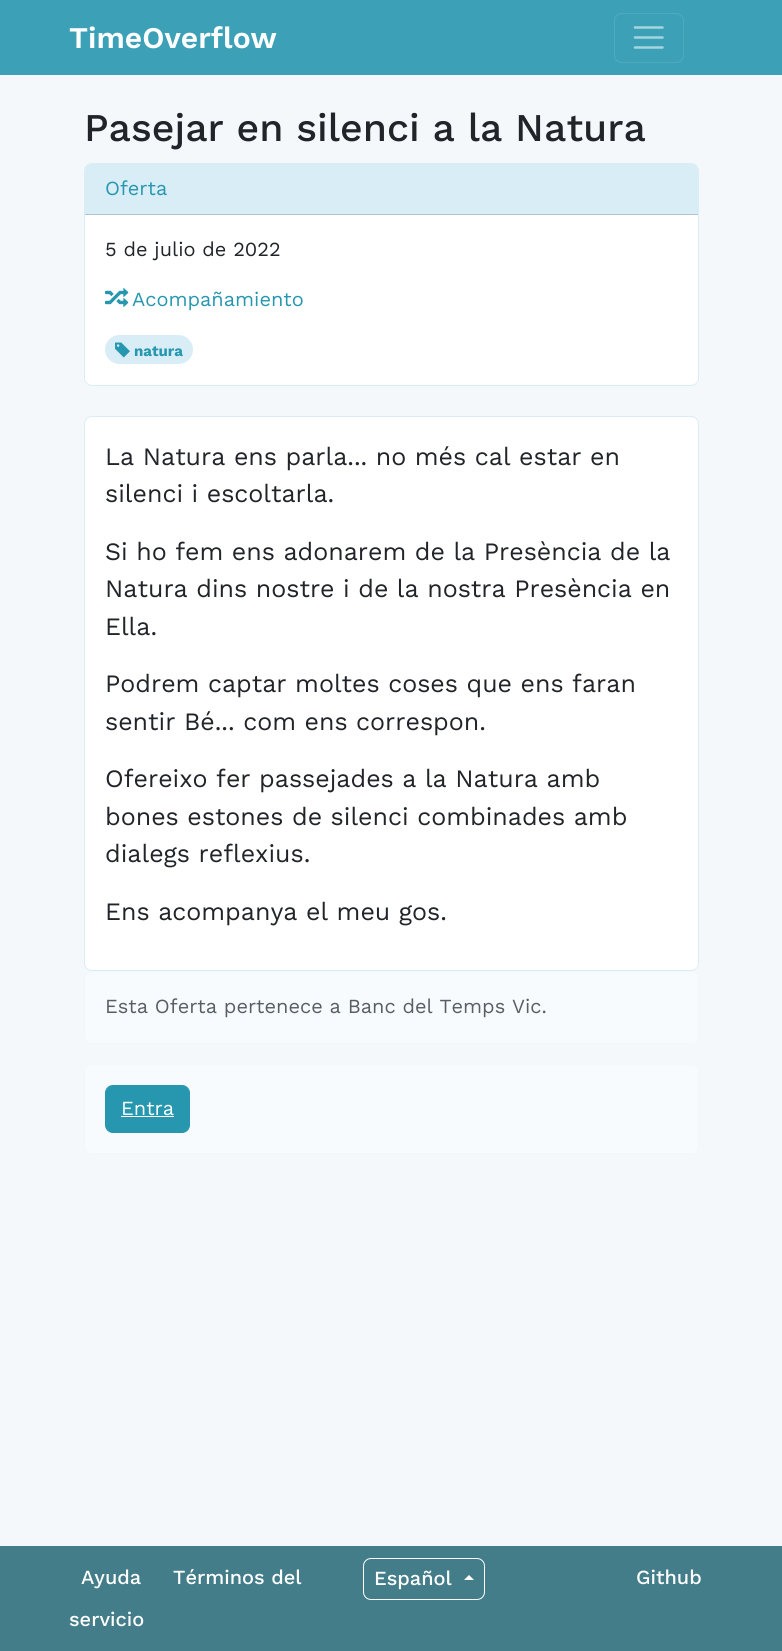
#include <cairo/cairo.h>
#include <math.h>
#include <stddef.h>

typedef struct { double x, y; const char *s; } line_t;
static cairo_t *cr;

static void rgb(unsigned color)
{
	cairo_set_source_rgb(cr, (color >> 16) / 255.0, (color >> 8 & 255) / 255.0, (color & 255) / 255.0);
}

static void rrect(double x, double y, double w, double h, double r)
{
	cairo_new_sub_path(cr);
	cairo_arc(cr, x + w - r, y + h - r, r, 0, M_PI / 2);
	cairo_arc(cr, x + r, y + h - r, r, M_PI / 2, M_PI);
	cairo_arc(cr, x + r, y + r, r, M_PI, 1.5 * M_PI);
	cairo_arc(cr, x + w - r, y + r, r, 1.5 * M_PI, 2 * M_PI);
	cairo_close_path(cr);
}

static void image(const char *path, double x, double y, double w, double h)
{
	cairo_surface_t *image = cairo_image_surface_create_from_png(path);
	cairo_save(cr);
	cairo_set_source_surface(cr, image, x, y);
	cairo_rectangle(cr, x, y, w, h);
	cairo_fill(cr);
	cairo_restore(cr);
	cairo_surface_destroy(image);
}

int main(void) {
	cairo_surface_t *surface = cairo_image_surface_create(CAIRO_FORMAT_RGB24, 782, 1651);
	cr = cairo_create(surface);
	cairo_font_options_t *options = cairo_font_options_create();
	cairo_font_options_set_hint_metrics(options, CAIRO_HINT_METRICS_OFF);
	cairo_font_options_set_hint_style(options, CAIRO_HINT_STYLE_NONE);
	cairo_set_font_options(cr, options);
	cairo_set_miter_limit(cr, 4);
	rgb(0xf5f8fa);
	cairo_paint(cr);
	rgb(0x3ca1b7);
	cairo_rectangle(cr, 0, 0, 782, 75);
	cairo_fill(cr);
	rrect(614.5, 13.5, 69, 49, 7.5);
	rgb(0x50aabe);
	cairo_set_line_width(cr, 1);
	cairo_stroke(cr);
	cairo_new_path(cr);
	cairo_move_to(cr, 635, 27.5);
	cairo_line_to(cr, 662.5, 27.5);
	cairo_move_to(cr, 635, 37.5);
	cairo_line_to(cr, 662.5, 37.5);
	cairo_move_to(cr, 635, 47.5);
	cairo_line_to(cr, 662.5, 47.5);
	rgb(0xa7d5df);
	cairo_set_line_width(cr, 2.5);
	cairo_set_line_cap(cr, CAIRO_LINE_CAP_ROUND);
	cairo_stroke(cr);
	rgb(0xffffff);
	rrect(84.5, 163.5, 614, 222, 7.5);
	cairo_fill_preserve(cr);
	rgb(0xd9edf7);
	cairo_set_line_width(cr, 1);
	cairo_set_line_cap(cr, CAIRO_LINE_CAP_BUTT);
	cairo_stroke(cr);
	cairo_new_path(cr);
	cairo_move_to(cr, 91, 164);
	cairo_line_to(cr, 692, 164);
	cairo_curve_to(cr, 695.5, 164, 698, 166.5, 698, 170);
	cairo_line_to(cr, 698, 215);
	cairo_line_to(cr, 85, 215);
	cairo_line_to(cr, 85, 170);
	cairo_curve_to(cr, 85, 166.5, 87.5, 164, 91, 164);
	cairo_close_path(cr);
	cairo_fill(cr);
	rgb(0xb3c3cc);
	cairo_rectangle(cr, 85, 214, 613, 1);
	cairo_fill(cr);
	image("img/1.png", 105, 288, 24, 19);
	rgb(0xd9edf7);
	rrect(105, 335, 88, 29, 14.5);
	cairo_fill(cr);
	image("img/2.png", 115, 342, 15, 16);
	rgb(0xffffff);
	rrect(84.5, 416.5, 614, 554, 7.5);
	cairo_fill_preserve(cr);
	rgb(0xd9edf7);
	cairo_stroke(cr);
	rgb(0xf7fbfd);
	rrect(84.5, 971.5, 614, 72, 7.5);
	cairo_fill_preserve(cr);
	rgb(0xf0f8fc);
	cairo_stroke(cr);
	rgb(0xf7fbfd);
	rrect(84.5, 1064.5, 614, 89, 7.5);
	cairo_fill_preserve(cr);
	rgb(0xf0f8fc);
	cairo_stroke(cr);
	rgb(0x2797af);
	rrect(105.5, 1085.5, 84, 47, 7.5);
	cairo_fill_preserve(cr);
	cairo_stroke(cr);
	rgb(0xffffff);
	cairo_rectangle(cr, 121, 1116, 53, 1);
	cairo_fill(cr);
	rgb(0x437d89);
	cairo_rectangle(cr, 0, 1546, 782, 105);
	cairo_fill(cr);
	rrect(363.5, 1558.5, 121, 41, 7.5);
	rgb(0xffffff);
	cairo_stroke(cr);
	cairo_new_path(cr);
	cairo_move_to(cr, 474, 1580);
	cairo_line_to(cr, 464, 1580);
	cairo_line_to(cr, 469, 1575);
	cairo_close_path(cr);
	cairo_fill(cr);
	cairo_select_font_face(cr, "Work Sans SemiBold", CAIRO_FONT_SLANT_NORMAL, CAIRO_FONT_WEIGHT_NORMAL);
	cairo_set_font_size(cr, 30);
	cairo_move_to(cr, 69, 48);
	cairo_show_text(cr, "TimeOverflow");
	cairo_select_font_face(cr, "Work Sans Medium", CAIRO_FONT_SLANT_NORMAL, CAIRO_FONT_WEIGHT_NORMAL);
	cairo_set_font_size(cr, 39.25);
	rgb(0x212529);
	cairo_move_to(cr, 84, 141);
	cairo_show_text(cr, "Pasejar en silenci a la Natura");
	cairo_select_font_face(cr, "Work Sans", CAIRO_FONT_SLANT_NORMAL, CAIRO_FONT_WEIGHT_NORMAL);
	cairo_set_font_size(cr, 20);
	rgb(0x2797af);
	cairo_move_to(cr, 105, 195);
	cairo_show_text(cr, "Oferta");
	rgb(0x212529);
	cairo_move_to(cr, 105, 256);
	cairo_show_text(cr, "5 de julio de 2022");
	rgb(0x2797af);
	cairo_move_to(cr, 132, 306);
	cairo_show_text(cr, "Acompañamiento");
	cairo_select_font_face(cr, "Work Sans", CAIRO_FONT_SLANT_NORMAL, CAIRO_FONT_WEIGHT_BOLD);
	cairo_set_font_size(cr, 15);
	cairo_move_to(cr, 134, 356);
	cairo_show_text(cr, "natura");
	cairo_select_font_face(cr, "Work Sans", CAIRO_FONT_SLANT_NORMAL, CAIRO_FONT_WEIGHT_NORMAL);
	cairo_set_font_size(cr, 25);
	rgb(0x212529);
	{
		static const line_t items[] = {
			{105, 465, "La Natura ens parla... no més cal estar en"},
			{105, 502, "silenci i escoltarla."},
			{105, 560, "Si ho fem ens adonarem de la Presència de la"},
			{105, 597, "Natura dins nostre i de la nostra Presència en"},
			{105, 635, "Ella."},
			{105, 692, "Podrem captar moltes coses que ens faran"},
			{105, 730, "sentir Bé... com ens correspon."},
			{105, 787, "Ofereixo fer passejades a la Natura amb"},
			{105, 825, "bones estones de silenci combinades amb"},
			{105, 862, "dialegs reflexius."},
			{105, 920, "Ens acompanya el meu gos."},
		};
		for (size_t i = 0; i < sizeof items / sizeof *items; i++) {
			cairo_move_to(cr, items[i].x, items[i].y);
			cairo_show_text(cr, items[i].s);
		}
	}
	cairo_set_font_size(cr, 20);
	rgb(0x575f63);
	cairo_move_to(cr, 105, 1013);
	cairo_show_text(cr, "Esta Oferta pertenece a Banc del Temps Vic.");
	rgb(0xffffff);
	cairo_move_to(cr, 121, 1115);
	cairo_show_text(cr, "Entra");
	cairo_select_font_face(cr, "Work Sans Medium", CAIRO_FONT_SLANT_NORMAL, CAIRO_FONT_WEIGHT_NORMAL);
	{
		static const line_t items[] = {
			{81, 1584, "Ayuda"},
			{173, 1584, "Términos del"},
			{69, 1626, "servicio"},
			{374, 1585, "Español"},
			{636, 1584, "Github"},
		};
		for (size_t i = 0; i < sizeof items / sizeof *items; i++) {
			cairo_move_to(cr, items[i].x, items[i].y);
			cairo_show_text(cr, items[i].s);
		}
	}
	cairo_surface_write_to_png(surface, "page.png");
	cairo_font_options_destroy(options);
	cairo_destroy(cr);
	cairo_surface_destroy(surface);
	return 0;
}
